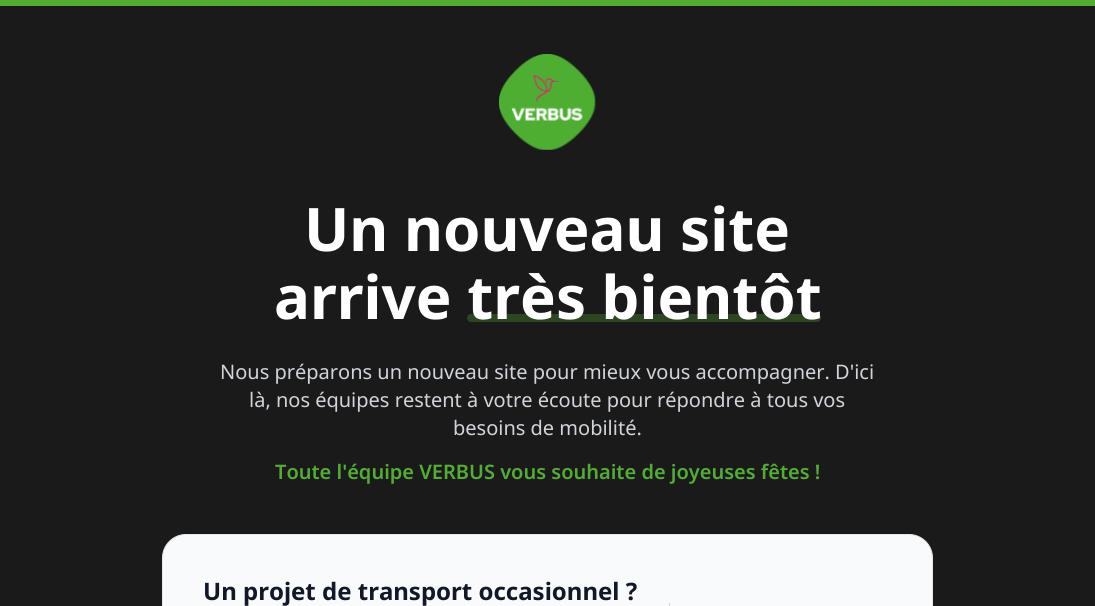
#include <cairo/cairo.h>
#include <math.h>
#include <stddef.h>

typedef struct { double x, y; const char *s; } line_t;
static cairo_t *cr;

static void rgb(unsigned color)
{
	cairo_set_source_rgb(cr, (color >> 16) / 255.0, (color >> 8 & 255) / 255.0, (color & 255) / 255.0);
}

static void rrect(double x, double y, double w, double h, double r)
{
	cairo_new_sub_path(cr);
	cairo_arc(cr, x + w - r, y + h - r, r, 0, M_PI / 2);
	cairo_arc(cr, x + r, y + h - r, r, M_PI / 2, M_PI);
	cairo_arc(cr, x + r, y + r, r, M_PI, 1.5 * M_PI);
	cairo_arc(cr, x + w - r, y + r, r, 1.5 * M_PI, 2 * M_PI);
	cairo_close_path(cr);
}

static void image(const char *path, double x, double y, double w, double h)
{
	cairo_surface_t *image = cairo_image_surface_create_from_png(path);
	cairo_save(cr);
	cairo_set_source_surface(cr, image, x, y);
	cairo_rectangle(cr, x, y, w, h);
	cairo_fill(cr);
	cairo_restore(cr);
	cairo_surface_destroy(image);
}

int main(void) {
	cairo_surface_t *surface = cairo_image_surface_create(CAIRO_FORMAT_RGB24, 1095, 606);
	cr = cairo_create(surface);
	cairo_font_options_t *options = cairo_font_options_create();
	cairo_font_options_set_hint_metrics(options, CAIRO_HINT_METRICS_OFF);
	cairo_font_options_set_hint_style(options, CAIRO_HINT_STYLE_NONE);
	cairo_set_font_options(cr, options);
	cairo_set_miter_limit(cr, 4);
	rgb(0x1a1a1a);
	cairo_paint(cr);
	rgb(0x51ae32);
	cairo_rectangle(cr, 0, 0, 1095, 6);
	cairo_fill(cr);
	image("img/1.png", 499, 54, 97, 96);
	rgb(0x2b4621);
	rrect(467, 314, 354, 8, 4);
	cairo_fill(cr);
	rgb(0xf9fafb);
	rrect(162.5, 534.5, 770, 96, 23.5);
	cairo_fill_preserve(cr);
	rgb(0xe5e7eb);
	cairo_set_line_width(cr, 1);
	cairo_stroke(cr);
	rgb(0xd1d5db);
	cairo_rectangle(cr, 669, 603, 1, 3);
	cairo_fill(cr);
	cairo_select_font_face(cr, "Noto Sans", CAIRO_FONT_SLANT_NORMAL, CAIRO_FONT_WEIGHT_BOLD);
	cairo_set_font_size(cr, 60);
	rgb(0xffffff);
	cairo_move_to(cr, 304, 251);
	cairo_show_text(cr, "Un nouveau site");
	cairo_move_to(cr, 274, 319);
	cairo_show_text(cr, "arrive très bientôt");
	cairo_select_font_face(cr, "Noto Sans", CAIRO_FONT_SLANT_NORMAL, CAIRO_FONT_WEIGHT_NORMAL);
	cairo_set_font_size(cr, 20);
	rgb(0xd1d5db);
	{
		static const line_t items[] = {
			{220, 379, "Nous préparons un nouveau site pour mieux vous accompagner. D'ici"},
			{249, 407, "là, nos équipes restent à votre écoute pour répondre à tous vos"},
			{453, 435, "besoins de mobilité."},
		};
		for (size_t i = 0; i < sizeof items / sizeof *items; i++) {
			cairo_move_to(cr, items[i].x, items[i].y);
			cairo_show_text(cr, items[i].s);
		}
	}
	cairo_select_font_face(cr, "Noto Sans SemiBold", CAIRO_FONT_SLANT_NORMAL, CAIRO_FONT_WEIGHT_NORMAL);
	rgb(0x51ae32);
	cairo_move_to(cr, 275, 479);
	cairo_show_text(cr, "Toute l'équipe VERBUS vous souhaite de joyeuses fêtes !");
	cairo_select_font_face(cr, "Noto Sans", CAIRO_FONT_SLANT_NORMAL, CAIRO_FONT_WEIGHT_BOLD);
	cairo_set_font_size(cr, 24);
	rgb(0x111827);
	cairo_move_to(cr, 203, 600);
	cairo_show_text(cr, "Un projet de transport occasionnel ?");
	cairo_surface_write_to_png(surface, "page.png");
	cairo_font_options_destroy(options);
	cairo_destroy(cr);
	cairo_surface_destroy(surface);
	return 0;
}
